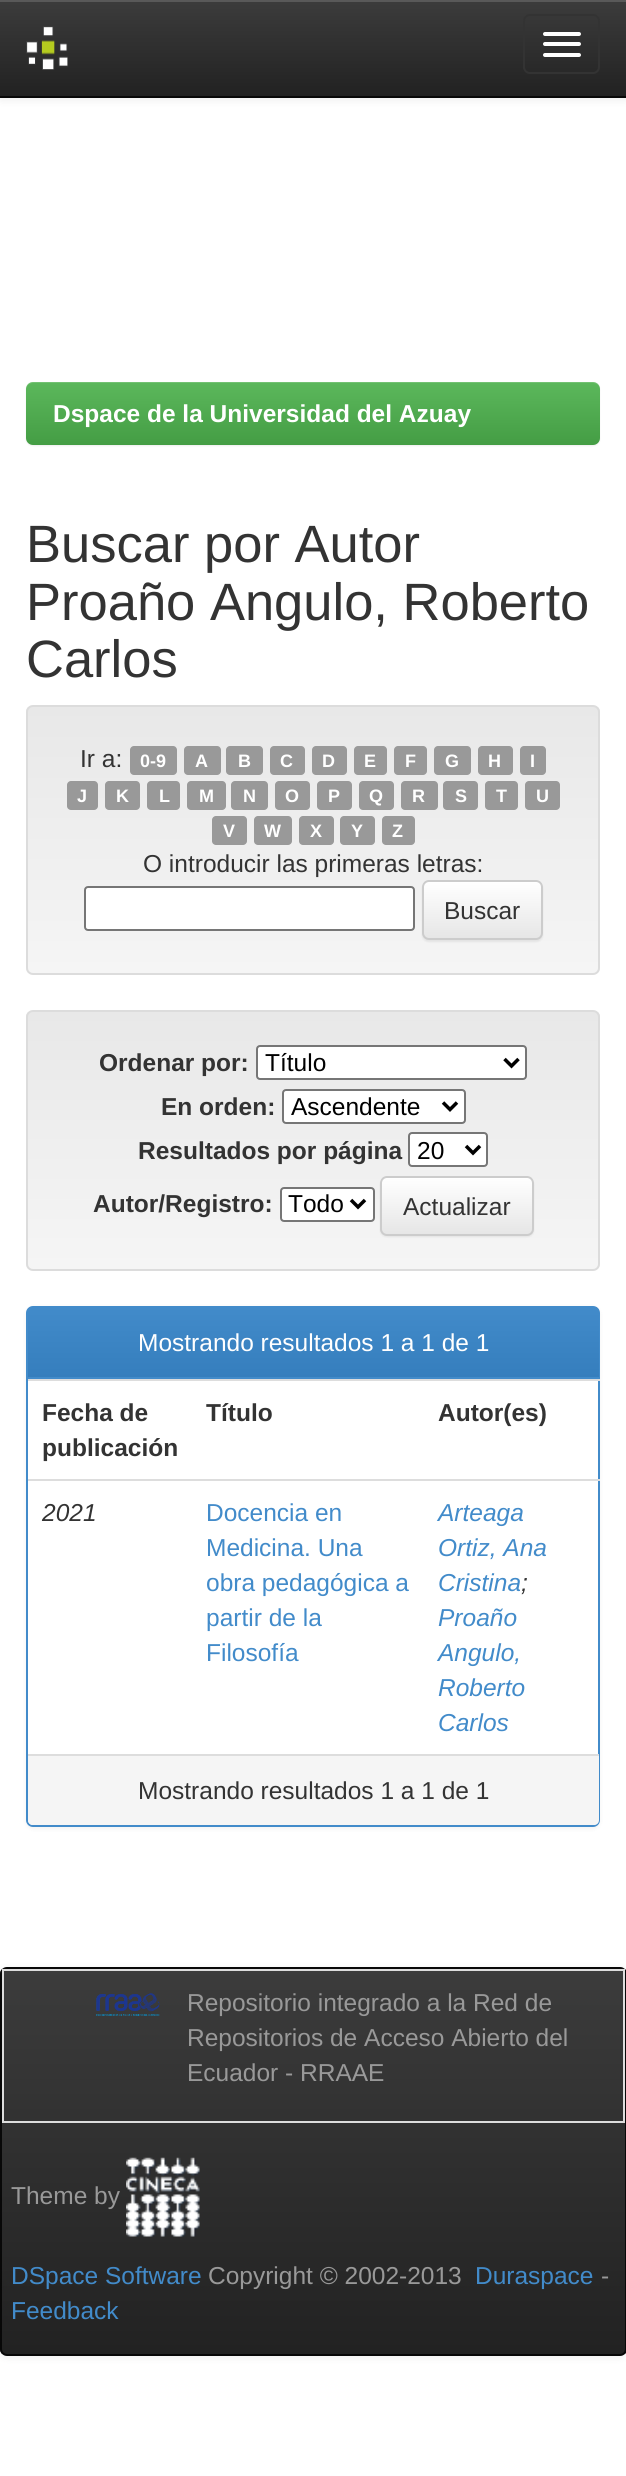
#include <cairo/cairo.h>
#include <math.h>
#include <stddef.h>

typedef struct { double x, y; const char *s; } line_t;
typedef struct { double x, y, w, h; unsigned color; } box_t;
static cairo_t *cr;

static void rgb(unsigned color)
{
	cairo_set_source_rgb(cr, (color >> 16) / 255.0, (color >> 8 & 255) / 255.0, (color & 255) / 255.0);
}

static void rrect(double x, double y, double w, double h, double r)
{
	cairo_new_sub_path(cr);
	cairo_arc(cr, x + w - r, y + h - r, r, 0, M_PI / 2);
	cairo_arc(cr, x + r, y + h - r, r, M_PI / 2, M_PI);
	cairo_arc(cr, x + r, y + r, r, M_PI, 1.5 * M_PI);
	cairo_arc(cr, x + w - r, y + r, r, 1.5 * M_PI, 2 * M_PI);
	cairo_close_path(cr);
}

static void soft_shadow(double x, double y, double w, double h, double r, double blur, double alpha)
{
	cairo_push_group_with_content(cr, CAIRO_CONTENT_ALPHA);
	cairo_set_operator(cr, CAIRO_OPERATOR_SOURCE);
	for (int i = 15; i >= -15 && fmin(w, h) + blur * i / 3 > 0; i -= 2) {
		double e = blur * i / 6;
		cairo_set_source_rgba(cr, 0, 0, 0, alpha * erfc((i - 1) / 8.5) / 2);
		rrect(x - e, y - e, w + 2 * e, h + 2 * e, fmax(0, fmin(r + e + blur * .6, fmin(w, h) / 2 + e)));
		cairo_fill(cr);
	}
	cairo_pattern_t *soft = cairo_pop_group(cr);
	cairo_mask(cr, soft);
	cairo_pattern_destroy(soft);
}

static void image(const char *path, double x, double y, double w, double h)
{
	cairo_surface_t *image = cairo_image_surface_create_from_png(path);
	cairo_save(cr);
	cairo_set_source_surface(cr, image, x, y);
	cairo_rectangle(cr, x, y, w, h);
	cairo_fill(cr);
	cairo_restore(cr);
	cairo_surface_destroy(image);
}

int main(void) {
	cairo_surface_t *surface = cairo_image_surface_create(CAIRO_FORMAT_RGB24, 626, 2476);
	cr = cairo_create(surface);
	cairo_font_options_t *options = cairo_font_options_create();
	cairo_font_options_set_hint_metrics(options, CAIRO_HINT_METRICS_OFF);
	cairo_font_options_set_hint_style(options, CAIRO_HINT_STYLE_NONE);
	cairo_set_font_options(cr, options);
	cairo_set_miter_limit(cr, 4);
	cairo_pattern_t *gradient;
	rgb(0xffffff);
	cairo_paint(cr);
	rgb(0x000000);
	soft_shadow(0, 2, 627, 98, 0, 4.5, 0.07);
	gradient = cairo_pattern_create_linear(313, 0, 313, 96);
	cairo_pattern_add_color_stop_rgba(gradient, 0, 0.235, 0.235, 0.235, 1);
	cairo_pattern_add_color_stop_rgba(gradient, 1, 0.133, 0.133, 0.133, 1);
	cairo_set_source(cr, gradient);
	cairo_pattern_destroy(gradient);
	cairo_rectangle(cr, 0, 2, 626, 94);
	cairo_fill(cr);
	rgb(0x595959);
	cairo_rectangle(cr, 0, 0, 626, 2);
	cairo_fill(cr);
	rgb(0x080808);
	cairo_rectangle(cr, 0, 96, 626, 2);
	cairo_fill(cr);
	image("img/1.png", 26, 26, 42, 44);
	rrect(524, 15, 75, 58, 6);
	rgb(0x333333);
	cairo_stroke(cr);
	rgb(0xffffff);
	rrect(543, 32, 38, 4, 2);
	cairo_fill(cr);
	rrect(543, 42, 38, 4, 2);
	cairo_fill(cr);
	rrect(543, 53, 38, 4, 2);
	cairo_fill(cr);
	rgb(0x000000);
	soft_shadow(26, 383, 574, 63, 7, 1, 0.07);
	gradient = cairo_pattern_create_linear(313, 381, 313, 445);
	cairo_pattern_add_color_stop_rgba(gradient, 0, 0.361, 0.722, 0.361, 1);
	cairo_pattern_add_color_stop_rgba(gradient, 1, 0.267, 0.616, 0.267, 1);
	cairo_set_source(cr, gradient);
	cairo_pattern_destroy(gradient);
	rrect(26, 382, 574, 63, 7);
	cairo_fill(cr);
	cairo_set_source_rgba(cr, 1, 1, 1, 0.15);
	cairo_new_path(cr);
	cairo_move_to(cr, 33, 383);
	cairo_line_to(cr, 593, 383);
	cairo_curve_to(cr, 597, 383, 600, 386, 600, 390);
	cairo_curve_to(cr, 600, 386, 598, 382, 593, 382);
	cairo_line_to(cr, 33, 382);
	cairo_curve_to(cr, 28, 382, 26, 386, 26, 390);
	cairo_curve_to(cr, 26, 386, 29, 383, 33, 383);
	cairo_close_path(cr);
	cairo_fill(cr);
	cairo_save(cr);
	rrect(26, 705, 574, 270, 7);
	cairo_clip(cr);
	gradient = cairo_pattern_create_linear(313, 707, 313, 973);
	cairo_pattern_add_color_stop_rgba(gradient, 0, 0.91, 0.91, 0.91, 1);
	cairo_pattern_add_color_stop_rgba(gradient, 1, 0.961, 0.961, 0.961, 1);
	cairo_set_source(cr, gradient);
	cairo_pattern_destroy(gradient);
	cairo_rectangle(cr, 26, 707, 574, 266);
	cairo_fill(cr);
	cairo_restore(cr);
	rrect(27, 706, 572, 268, 6);
	rgb(0xdcdcdc);
	cairo_stroke(cr);
	rgb(0x999999);
	rrect(130, 746, 47, 29, 4);
	cairo_fill(cr);
	rrect(184, 746, 37, 29, 4);
	cairo_fill(cr);
	rrect(226, 746, 37, 29, 4);
	cairo_fill(cr);
	rrect(270, 746, 35, 29, 4);
	cairo_fill(cr);
	rrect(312, 746, 35, 29, 4);
	cairo_fill(cr);
	rrect(354, 746, 33, 29, 4);
	cairo_fill(cr);
	rrect(394, 746, 33, 29, 4);
	cairo_fill(cr);
	rrect(434, 746, 37, 29, 4);
	cairo_fill(cr);
	rrect(478, 746, 35, 29, 4);
	cairo_fill(cr);
	rrect(520, 746, 26, 29, 4);
	cairo_fill(cr);
	rrect(67, 781, 31, 29, 4);
	cairo_fill(cr);
	rrect(105, 781, 35, 29, 4);
	cairo_fill(cr);
	rrect(147, 781, 33, 29, 4);
	cairo_fill(cr);
	rrect(187, 781, 39, 29, 4);
	cairo_fill(cr);
	rrect(231, 781, 37, 29, 4);
	cairo_fill(cr);
	rrect(275, 781, 35, 29, 4);
	cairo_fill(cr);
	rrect(317, 781, 35, 29, 4);
	cairo_fill(cr);
	rrect(359, 781, 35, 29, 4);
	cairo_fill(cr);
	rrect(401, 781, 37, 29, 4);
	cairo_fill(cr);
	rrect(443, 781, 35, 29, 4);
	cairo_fill(cr);
	rrect(485, 781, 33, 29, 4);
	cairo_fill(cr);
	rrect(525, 781, 35, 29, 4);
	cairo_fill(cr);
	rrect(212, 816, 35, 29, 4);
	cairo_fill(cr);
	rrect(254, 816, 38, 29, 4);
	cairo_fill(cr);
	rrect(299, 816, 35, 29, 4);
	cairo_fill(cr);
	rrect(340, 816, 35, 29, 4);
	cairo_fill(cr);
	rrect(382, 816, 33, 29, 4);
	cairo_fill(cr);
	rgb(0xffffff);
	rrect(85, 887, 329, 43, 3);
	cairo_fill_preserve(cr);
	rgb(0x767676);
	cairo_stroke(cr);
	rgb(0x000000);
	soft_shadow(422, 882, 121, 60, 7, 1, 0.07);
	cairo_save(cr);
	rrect(422, 880, 121, 60, 7);
	cairo_clip(cr);
	gradient = cairo_pattern_create_linear(482, 882, 482, 938);
	cairo_pattern_add_color_stop_rgba(gradient, 0, 1, 1, 1, 1);
	cairo_pattern_add_color_stop_rgba(gradient, 1, 0.902, 0.902, 0.902, 1);
	cairo_set_source(cr, gradient);
	cairo_pattern_destroy(gradient);
	cairo_rectangle(cr, 422, 882, 121, 56);
	cairo_fill(cr);
	cairo_restore(cr);
	rrect(423, 881, 119, 58, 6);
	rgb(0xcccccc);
	cairo_stroke(cr);
	cairo_save(cr);
	rrect(26, 1010, 574, 261, 7);
	cairo_clip(cr);
	gradient = cairo_pattern_create_linear(313, 1012, 313, 1269);
	cairo_pattern_add_color_stop_rgba(gradient, 0, 0.91, 0.91, 0.91, 1);
	cairo_pattern_add_color_stop_rgba(gradient, 1, 0.961, 0.961, 0.961, 1);
	cairo_set_source(cr, gradient);
	cairo_pattern_destroy(gradient);
	cairo_rectangle(cr, 26, 1012, 574, 257);
	cairo_fill(cr);
	cairo_restore(cr);
	rrect(27, 1011, 572, 259, 6);
	rgb(0xdcdcdc);
	cairo_stroke(cr);
	rgb(0xffffff);
	rrect(257, 1046, 269, 33, 3);
	cairo_fill_preserve(cr);
	rgb(0x767676);
	cairo_stroke(cr);
	cairo_new_path(cr);
	cairo_move_to(cr, 504.5, 1059);
	cairo_line_to(cr, 511.5, 1066);
	cairo_line_to(cr, 518.5, 1059);
	rgb(0x000000);
	cairo_set_line_width(cr, 3.5);
	cairo_stroke(cr);
	rgb(0xffffff);
	rrect(283, 1090, 182, 33, 3);
	cairo_fill_preserve(cr);
	rgb(0x767676);
	cairo_set_line_width(cr, 2);
	cairo_stroke(cr);
	cairo_new_path(cr);
	cairo_move_to(cr, 443, 1102.5);
	cairo_line_to(cr, 450, 1109.5);
	cairo_line_to(cr, 457, 1102.5);
	rgb(0x000000);
	cairo_set_line_width(cr, 3.5);
	cairo_stroke(cr);
	rgb(0xffffff);
	rrect(409, 1133, 78, 33, 3);
	cairo_fill_preserve(cr);
	rgb(0x767676);
	cairo_set_line_width(cr, 2);
	cairo_stroke(cr);
	cairo_new_path(cr);
	cairo_move_to(cr, 466, 1146);
	cairo_line_to(cr, 473, 1153);
	cairo_line_to(cr, 480, 1146);
	rgb(0x000000);
	cairo_set_line_width(cr, 3.5);
	cairo_stroke(cr);
	rgb(0xffffff);
	rrect(281, 1188, 93, 33, 3);
	cairo_fill_preserve(cr);
	rgb(0x767676);
	cairo_set_line_width(cr, 2);
	cairo_stroke(cr);
	cairo_new_path(cr);
	cairo_move_to(cr, 351, 1200);
	cairo_line_to(cr, 358, 1207);
	cairo_line_to(cr, 365, 1200);
	rgb(0x000000);
	cairo_set_line_width(cr, 3.5);
	cairo_stroke(cr);
	rgb(0x000000);
	soft_shadow(380, 1178, 154, 59, 7, 1, 0.07);
	cairo_save(cr);
	rrect(380, 1176, 154, 60, 7);
	cairo_clip(cr);
	gradient = cairo_pattern_create_linear(457, 1178, 457, 1234);
	cairo_pattern_add_color_stop_rgba(gradient, 0, 1, 1, 1, 1);
	cairo_pattern_add_color_stop_rgba(gradient, 1, 0.902, 0.902, 0.902, 1);
	cairo_set_source(cr, gradient);
	cairo_pattern_destroy(gradient);
	cairo_rectangle(cr, 380, 1178, 154, 56);
	cairo_fill(cr);
	cairo_restore(cr);
	rrect(381, 1177, 152, 58, 6);
	rgb(0xcccccc);
	cairo_set_line_width(cr, 2);
	cairo_stroke(cr);
	rgb(0x000000);
	soft_shadow(26, 1307, 574, 522, 7, 2, 0.05);
	rgb(0xffffff);
	rrect(27, 1307, 572, 519, 6);
	cairo_fill_preserve(cr);
	rgb(0x428bca);
	cairo_stroke(cr);
	cairo_new_path(cr);
	cairo_move_to(cr, 33, 1307);
	cairo_line_to(cr, 594, 1307);
	cairo_curve_to(cr, 597, 1307, 599, 1309, 599, 1312);
	cairo_line_to(cr, 599, 1379);
	cairo_line_to(cr, 28, 1379);
	cairo_line_to(cr, 28, 1312);
	cairo_curve_to(cr, 28, 1309, 30, 1307, 33, 1307);
	cairo_close_path(cr);
	cairo_fill(cr);
	gradient = cairo_pattern_create_linear(313, 1307, 313, 1377);
	cairo_pattern_add_color_stop_rgba(gradient, 0, 0.259, 0.545, 0.792, 1);
	cairo_pattern_add_color_stop_rgba(gradient, 1, 0.208, 0.494, 0.741, 1);
	cairo_set_source(cr, gradient);
	cairo_pattern_destroy(gradient);
	cairo_new_path(cr);
	cairo_move_to(cr, 33, 1307);
	cairo_line_to(cr, 594, 1307);
	cairo_curve_to(cr, 597, 1307, 599, 1309, 599, 1312);
	cairo_line_to(cr, 599, 1377);
	cairo_line_to(cr, 28, 1377);
	cairo_line_to(cr, 28, 1312);
	cairo_curve_to(cr, 28, 1309, 30, 1307, 33, 1307);
	cairo_close_path(cr);
	cairo_fill(cr);
	rgb(0xdddddd);
	cairo_rectangle(cr, 28, 1379, 572, 2);
	cairo_fill(cr);
	cairo_rectangle(cr, 28, 1479, 572, 2);
	cairo_fill(cr);
	rgb(0xf5f5f5);
	cairo_new_path(cr);
	cairo_move_to(cr, 28, 1754);
	cairo_line_to(cr, 599, 1754);
	cairo_line_to(cr, 599, 1820);
	cairo_curve_to(cr, 599, 1823, 597, 1825, 594, 1825);
	cairo_line_to(cr, 33, 1825);
	cairo_curve_to(cr, 30, 1825, 28, 1823, 28, 1820);
	cairo_close_path(cr);
	cairo_fill(cr);
	rgb(0xdddddd);
	cairo_rectangle(cr, 28, 1754, 571, 2);
	cairo_fill(cr);
	rgb(0x000000);
	soft_shadow(0, 1969, 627, 388, 7, 4.5, 0.07);
	cairo_save(cr);
	rrect(0, 1967, 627, 389, 7);
	cairo_clip(cr);
	gradient = cairo_pattern_create_linear(313, 1969, 313, 2354);
	cairo_pattern_add_color_stop_rgba(gradient, 0, 0.235, 0.235, 0.235, 1);
	cairo_pattern_add_color_stop_rgba(gradient, 1, 0.133, 0.133, 0.133, 1);
	cairo_set_source(cr, gradient);
	cairo_pattern_destroy(gradient);
	cairo_rectangle(cr, 0, 1969, 626, 385);
	cairo_fill(cr);
	cairo_restore(cr);
	rrect(1, 1968, 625, 387, 6);
	rgb(0x080808);
	cairo_stroke(cr);
	{
		static const box_t items[] = {
			{2, 1969, 623, 2, 0xdddddd},
			{623, 1969, 2, 154, 0xdddddd},
			{2, 2121, 623, 2, 0xdddddd},
			{2, 1969, 2, 154, 0xdddddd},
		};
		for (size_t i = 0; i < sizeof items / sizeof *items; i++) {
			rgb(items[i].color);
			cairo_rectangle(cr, items[i].x, items[i].y, items[i].w, items[i].h);
			cairo_fill(cr);
		}
	}
	image("img/2.png", 96, 1993, 64, 23);
	image("img/3.png", 126, 2157, 74, 80);
	cairo_select_font_face(cr, "Liberation Sans", CAIRO_FONT_SLANT_NORMAL, CAIRO_FONT_WEIGHT_BOLD);
	cairo_set_font_size(cr, 24.5);
	rgb(0xffffff);
	cairo_move_to(cr, 53, 422);
	cairo_show_text(cr, "Dspace de la Universidad del Azuay");
	cairo_select_font_face(cr, "Liberation Sans", CAIRO_FONT_SLANT_NORMAL, CAIRO_FONT_WEIGHT_NORMAL);
	cairo_set_font_size(cr, 52.5);
	rgb(0x333333);
	{
		static const line_t items[] = {
			{26, 562, "Buscar por Autor"},
			{26, 620, "Proaño Angulo, Roberto"},
			{26, 677, "Carlos"},
		};
		for (size_t i = 0; i < sizeof items / sizeof *items; i++) {
			cairo_move_to(cr, items[i].x, items[i].y);
			cairo_show_text(cr, items[i].s);
		}
	}
	cairo_set_font_size(cr, 24.5);
	cairo_move_to(cr, 80, 767);
	cairo_show_text(cr, "Ir a:");
	cairo_select_font_face(cr, "Liberation Sans", CAIRO_FONT_SLANT_NORMAL, CAIRO_FONT_WEIGHT_BOLD);
	cairo_set_font_size(cr, 18);
	rgb(0xffffff);
	{
		static const line_t items[] = {
			{140, 767, "0-9"},
			{195, 767, "A"},
			{238, 767, "B"},
			{280, 767, "C"},
			{322, 767, "D"},
			{364, 767, "E"},
			{405, 767, "F"},
			{445, 767, "G"},
			{488, 767, "H"},
			{530, 767, "I"},
			{77, 802, "J"},
			{116, 802, "K"},
			{159, 802, "L"},
			{199, 802, "M"},
			{243, 802, "N"},
			{285, 802, "O"},
			{328, 802, "P"},
			{369, 802, "Q"},
			{412, 802, "R"},
			{455, 802, "S"},
			{496, 802, "T"},
			{536, 802, "U"},
			{223, 837, "V"},
			{264, 837, "W"},
			{310, 837, "X"},
			{351, 837, "Y"},
			{392, 837, "Z"},
		};
		for (size_t i = 0; i < sizeof items / sizeof *items; i++) {
			cairo_move_to(cr, items[i].x, items[i].y);
			cairo_show_text(cr, items[i].s);
		}
	}
	cairo_select_font_face(cr, "Liberation Sans", CAIRO_FONT_SLANT_NORMAL, CAIRO_FONT_WEIGHT_NORMAL);
	cairo_set_font_size(cr, 24.5);
	rgb(0x333333);
	cairo_move_to(cr, 143, 872);
	cairo_show_text(cr, "O introducir las primeras letras:");
	cairo_move_to(cr, 444, 919);
	cairo_show_text(cr, "Buscar");
	cairo_select_font_face(cr, "Liberation Sans", CAIRO_FONT_SLANT_NORMAL, CAIRO_FONT_WEIGHT_BOLD);
	cairo_move_to(cr, 99, 1071);
	cairo_show_text(cr, "Ordenar por:");
	cairo_select_font_face(cr, "Liberation Sans", CAIRO_FONT_SLANT_NORMAL, CAIRO_FONT_WEIGHT_NORMAL);
	rgb(0x000000);
	cairo_move_to(cr, 265, 1071);
	cairo_show_text(cr, "Título");
	cairo_select_font_face(cr, "Liberation Sans", CAIRO_FONT_SLANT_NORMAL, CAIRO_FONT_WEIGHT_BOLD);
	rgb(0x333333);
	cairo_move_to(cr, 161, 1115);
	cairo_show_text(cr, "En orden:");
	cairo_select_font_face(cr, "Liberation Sans", CAIRO_FONT_SLANT_NORMAL, CAIRO_FONT_WEIGHT_NORMAL);
	rgb(0x000000);
	cairo_move_to(cr, 291, 1115);
	cairo_show_text(cr, "Ascendente");
	cairo_select_font_face(cr, "Liberation Sans", CAIRO_FONT_SLANT_NORMAL, CAIRO_FONT_WEIGHT_BOLD);
	rgb(0x333333);
	cairo_move_to(cr, 138, 1159);
	cairo_show_text(cr, "Resultados por página");
	cairo_select_font_face(cr, "Liberation Sans", CAIRO_FONT_SLANT_NORMAL, CAIRO_FONT_WEIGHT_NORMAL);
	rgb(0x000000);
	cairo_move_to(cr, 417, 1159);
	cairo_show_text(cr, "20");
	cairo_select_font_face(cr, "Liberation Sans", CAIRO_FONT_SLANT_NORMAL, CAIRO_FONT_WEIGHT_BOLD);
	rgb(0x333333);
	cairo_move_to(cr, 93, 1212);
	cairo_show_text(cr, "Autor/Registro:");
	cairo_select_font_face(cr, "Liberation Sans", CAIRO_FONT_SLANT_NORMAL, CAIRO_FONT_WEIGHT_NORMAL);
	rgb(0x000000);
	cairo_move_to(cr, 288, 1212);
	cairo_show_text(cr, "Todo");
	rgb(0x333333);
	cairo_move_to(cr, 403, 1215);
	cairo_show_text(cr, "Actualizar");
	rgb(0xffffff);
	cairo_move_to(cr, 138, 1351);
	cairo_show_text(cr, "Mostrando resultados 1 a 1 de 1");
	cairo_select_font_face(cr, "Liberation Sans", CAIRO_FONT_SLANT_NORMAL, CAIRO_FONT_WEIGHT_BOLD);
	rgb(0x333333);
	{
		static const line_t items[] = {
			{42, 1421, "Fecha de"},
			{42, 1456, "publicación"},
			{206, 1421, "Título"},
			{438, 1421, "Autor(es)"},
		};
		for (size_t i = 0; i < sizeof items / sizeof *items; i++) {
			cairo_move_to(cr, items[i].x, items[i].y);
			cairo_show_text(cr, items[i].s);
		}
	}
	cairo_select_font_face(cr, "Liberation Sans", CAIRO_FONT_SLANT_ITALIC, CAIRO_FONT_WEIGHT_NORMAL);
	cairo_move_to(cr, 42, 1521);
	cairo_show_text(cr, "2021");
	cairo_select_font_face(cr, "Liberation Sans", CAIRO_FONT_SLANT_NORMAL, CAIRO_FONT_WEIGHT_NORMAL);
	rgb(0x428bca);
	{
		static const line_t items[] = {
			{206, 1521, "Docencia en"},
			{206, 1556, "Medicina. Una"},
			{206, 1591, "obra pedagógica a"},
			{206, 1626, "partir de la"},
			{206, 1661, "Filosofía"},
		};
		for (size_t i = 0; i < sizeof items / sizeof *items; i++) {
			cairo_move_to(cr, items[i].x, items[i].y);
			cairo_show_text(cr, items[i].s);
		}
	}
	cairo_select_font_face(cr, "Liberation Sans", CAIRO_FONT_SLANT_ITALIC, CAIRO_FONT_WEIGHT_NORMAL);
	{
		static const line_t items[] = {
			{438, 1521, "Arteaga"},
			{438, 1556, "Ortiz, Ana"},
			{438, 1591, "Cristina"},
		};
		for (size_t i = 0; i < sizeof items / sizeof *items; i++) {
			cairo_move_to(cr, items[i].x, items[i].y);
			cairo_show_text(cr, items[i].s);
		}
	}
	rgb(0x333333);
	cairo_move_to(cr, 521, 1591);
	cairo_show_text(cr, ";");
	rgb(0x428bca);
	{
		static const line_t items[] = {
			{438, 1626, "Proaño"},
			{438, 1661, "Angulo,"},
			{438, 1696, "Roberto"},
			{438, 1731, "Carlos"},
		};
		for (size_t i = 0; i < sizeof items / sizeof *items; i++) {
			cairo_move_to(cr, items[i].x, items[i].y);
			cairo_show_text(cr, items[i].s);
		}
	}
	cairo_select_font_face(cr, "Liberation Sans", CAIRO_FONT_SLANT_NORMAL, CAIRO_FONT_WEIGHT_NORMAL);
	rgb(0x333333);
	cairo_move_to(cr, 138, 1799);
	cairo_show_text(cr, "Mostrando resultados 1 a 1 de 1");
	rgb(0x999999);
	{
		static const line_t items[] = {
			{187, 2011, "Repositorio integrado a la Red de"},
			{187, 2046, "Repositorios de Acceso Abierto del"},
			{187, 2081, "Ecuador - RRAAE"},
			{11, 2204, "Theme by"},
		};
		for (size_t i = 0; i < sizeof items / sizeof *items; i++) {
			cairo_move_to(cr, items[i].x, items[i].y);
			cairo_show_text(cr, items[i].s);
		}
	}
	rgb(0x428bca);
	cairo_move_to(cr, 11, 2284);
	cairo_show_text(cr, "DSpace Software");
	rgb(0x999999);
	cairo_move_to(cr, 208, 2284);
	cairo_show_text(cr, "Copyright © 2002-2013");
	rgb(0x428bca);
	cairo_move_to(cr, 475, 2284);
	cairo_show_text(cr, "Duraspace");
	rgb(0x999999);
	cairo_move_to(cr, 601, 2284);
	cairo_show_text(cr, "-");
	rgb(0x428bca);
	cairo_move_to(cr, 11, 2319);
	cairo_show_text(cr, "Feedback");
	cairo_surface_write_to_png(surface, "page.png");
	cairo_font_options_destroy(options);
	cairo_destroy(cr);
	cairo_surface_destroy(surface);
	return 0;
}
